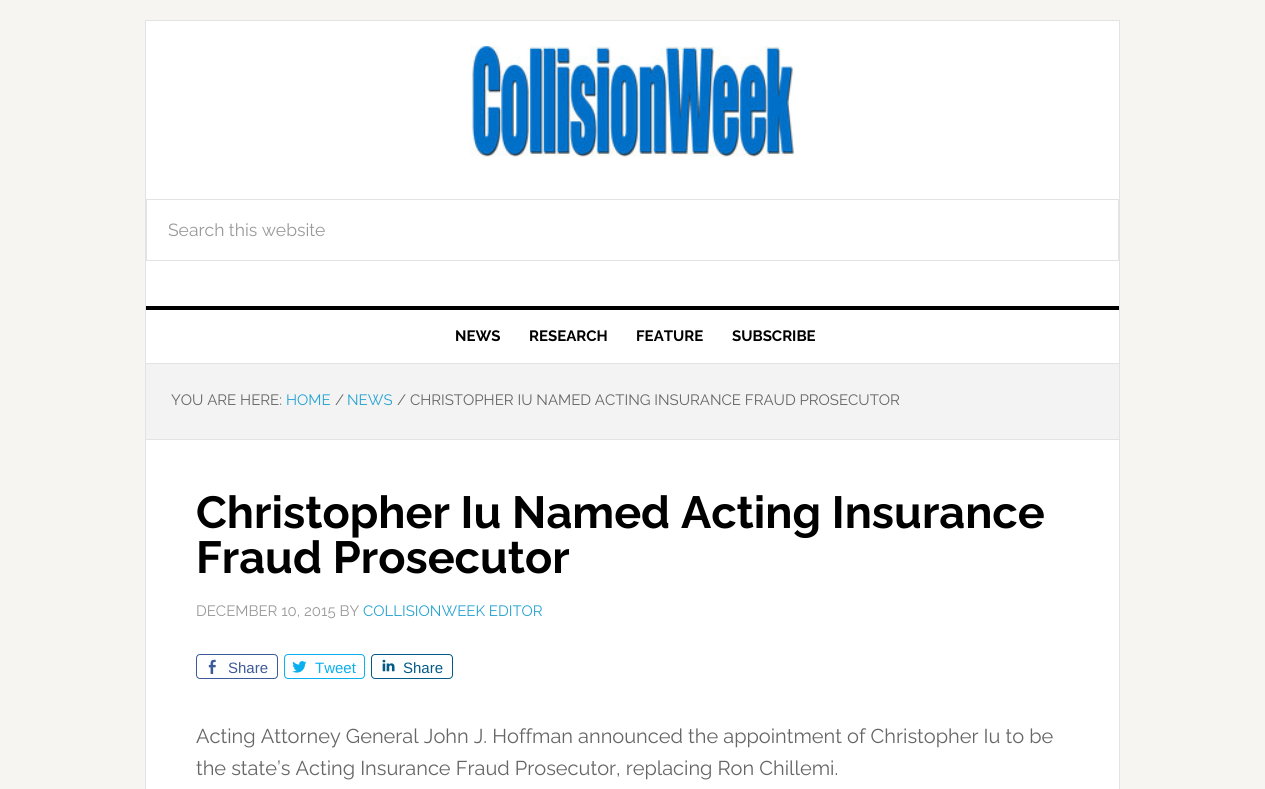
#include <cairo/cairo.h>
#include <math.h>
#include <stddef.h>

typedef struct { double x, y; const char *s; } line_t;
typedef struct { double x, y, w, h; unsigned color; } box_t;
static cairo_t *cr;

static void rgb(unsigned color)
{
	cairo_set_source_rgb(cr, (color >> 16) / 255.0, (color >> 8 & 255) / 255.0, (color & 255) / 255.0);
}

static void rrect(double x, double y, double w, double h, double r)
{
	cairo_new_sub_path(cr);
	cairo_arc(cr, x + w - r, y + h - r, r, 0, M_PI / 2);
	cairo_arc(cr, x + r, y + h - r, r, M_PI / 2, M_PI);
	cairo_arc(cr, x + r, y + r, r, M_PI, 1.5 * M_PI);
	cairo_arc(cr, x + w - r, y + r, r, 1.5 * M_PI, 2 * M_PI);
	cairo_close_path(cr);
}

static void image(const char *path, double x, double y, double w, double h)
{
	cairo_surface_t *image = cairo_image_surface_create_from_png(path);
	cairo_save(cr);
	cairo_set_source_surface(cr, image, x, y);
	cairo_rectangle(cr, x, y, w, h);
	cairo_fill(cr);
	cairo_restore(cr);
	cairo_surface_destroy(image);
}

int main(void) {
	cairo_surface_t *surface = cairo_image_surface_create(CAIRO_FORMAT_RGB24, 1265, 789);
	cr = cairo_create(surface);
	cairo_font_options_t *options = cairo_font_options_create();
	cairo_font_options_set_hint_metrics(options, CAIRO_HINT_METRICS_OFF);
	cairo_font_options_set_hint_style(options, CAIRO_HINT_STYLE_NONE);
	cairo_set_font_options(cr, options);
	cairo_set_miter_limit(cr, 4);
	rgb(0xf6f5f2);
	cairo_paint(cr);
	rgb(0xffffff);
	cairo_rectangle(cr, 145.5, 20.5, 974, 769);
	cairo_fill_preserve(cr);
	rgb(0xe3e3e3);
	cairo_set_line_width(cr, 1);
	cairo_stroke(cr);
	rgb(0x000000);
	cairo_rectangle(cr, 146, 306, 973, 4);
	cairo_fill(cr);
	image("img/1.png", 470, 46, 325, 111);
	cairo_rectangle(cr, 146.5, 199.5, 972, 61);
	rgb(0xe3e3e3);
	cairo_stroke(cr);
	{
		static const box_t items[] = {
			{146, 363, 973, 1, 0xe3e3e3},
			{146, 364, 973, 75, 0xf3f3f3},
			{146, 439, 973, 1, 0xe3e3e3},
		};
		for (size_t i = 0; i < sizeof items / sizeof *items; i++) {
			rgb(items[i].color);
			cairo_rectangle(cr, items[i].x, items[i].y, items[i].w, items[i].h);
			cairo_fill(cr);
		}
	}
	rrect(196.5, 654.5, 81, 24, 3.5);
	rgb(0x3d5a98);
	cairo_stroke(cr);
	image("img/2.png", 208, 659, 8, 15);
	rrect(284.5, 654.5, 80, 24, 3.5);
	rgb(0x09b0ed);
	cairo_stroke(cr);
	image("img/3.png", 292, 661, 15, 12);
	rrect(371.5, 654.5, 81, 24, 3.5);
	rgb(0x035a87);
	cairo_stroke(cr);
	image("img/4.png", 382, 659, 13, 13);
	cairo_select_font_face(cr, "Raleway", CAIRO_FONT_SLANT_NORMAL, CAIRO_FONT_WEIGHT_NORMAL);
	cairo_set_font_size(cr, 17.5);
	rgb(0x999999);
	cairo_move_to(cr, 168, 236);
	cairo_show_text(cr, "Search this website");
	cairo_select_font_face(cr, "Raleway", CAIRO_FONT_SLANT_NORMAL, CAIRO_FONT_WEIGHT_BOLD);
	cairo_set_font_size(cr, 15);
	rgb(0x000000);
	{
		static const line_t items[] = {
			{455, 341, "NEWS"},
			{529, 341, "RESEARCH"},
			{636, 341, "FEATURE"},
			{732, 341, "SUBSCRIBE"},
		};
		for (size_t i = 0; i < sizeof items / sizeof *items; i++) {
			cairo_move_to(cr, items[i].x, items[i].y);
			cairo_show_text(cr, items[i].s);
		}
	}
	cairo_select_font_face(cr, "Raleway", CAIRO_FONT_SLANT_NORMAL, CAIRO_FONT_WEIGHT_NORMAL);
	rgb(0x666666);
	cairo_move_to(cr, 171, 405);
	cairo_show_text(cr, "YOU ARE HERE:");
	rgb(0x27a3d1);
	cairo_move_to(cr, 286, 405);
	cairo_show_text(cr, "HOME");
	rgb(0x666666);
	cairo_move_to(cr, 335, 405);
	cairo_show_text(cr, "/");
	rgb(0x27a3d1);
	cairo_move_to(cr, 347, 405);
	cairo_show_text(cr, "NEWS");
	rgb(0x666666);
	cairo_move_to(cr, 397, 405);
	cairo_show_text(cr, "/ CHRISTOPHER IU NAMED ACTING INSURANCE FRAUD PROSECUTOR");
	cairo_select_font_face(cr, "Raleway", CAIRO_FONT_SLANT_NORMAL, CAIRO_FONT_WEIGHT_BOLD);
	cairo_set_font_size(cr, 45);
	rgb(0x000000);
	cairo_move_to(cr, 196, 528);
	cairo_show_text(cr, "Christopher Iu Named Acting Insurance");
	cairo_move_to(cr, 196, 573);
	cairo_show_text(cr, "Fraud Prosecutor");
	cairo_select_font_face(cr, "Raleway", CAIRO_FONT_SLANT_NORMAL, CAIRO_FONT_WEIGHT_NORMAL);
	cairo_set_font_size(cr, 15);
	rgb(0x999999);
	cairo_move_to(cr, 196, 616);
	cairo_show_text(cr, "DECEMBER 10, 2015 BY");
	rgb(0x27a3d1);
	cairo_move_to(cr, 363, 616);
	cairo_show_text(cr, "COLLISIONWEEK EDITOR");
	cairo_select_font_face(cr, "Liberation Sans", CAIRO_FONT_SLANT_NORMAL, CAIRO_FONT_WEIGHT_NORMAL);
	rgb(0x3d5a98);
	cairo_move_to(cr, 228, 673);
	cairo_show_text(cr, "Share");
	rgb(0x09b0ed);
	cairo_move_to(cr, 315, 673);
	cairo_show_text(cr, "Tweet");
	rgb(0x035a87);
	cairo_move_to(cr, 403, 673);
	cairo_show_text(cr, "Share");
	cairo_select_font_face(cr, "Raleway", CAIRO_FONT_SLANT_NORMAL, CAIRO_FONT_WEIGHT_NORMAL);
	cairo_set_font_size(cr, 20);
	rgb(0x666666);
	cairo_move_to(cr, 196, 743);
	cairo_show_text(cr, "Acting Attorney General John J. Hoffman announced the appointment of Christopher Iu to be");
	cairo_move_to(cr, 196, 775);
	cairo_show_text(cr, "the state’s Acting Insurance Fraud Prosecutor, replacing Ron Chillemi.");
	cairo_surface_write_to_png(surface, "page.png");
	cairo_font_options_destroy(options);
	cairo_destroy(cr);
	cairo_surface_destroy(surface);
	return 0;
}
